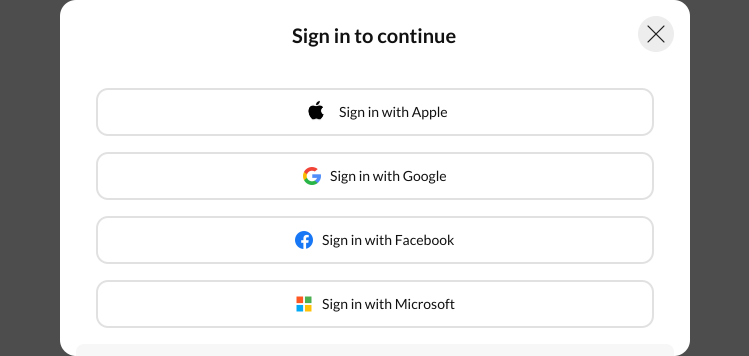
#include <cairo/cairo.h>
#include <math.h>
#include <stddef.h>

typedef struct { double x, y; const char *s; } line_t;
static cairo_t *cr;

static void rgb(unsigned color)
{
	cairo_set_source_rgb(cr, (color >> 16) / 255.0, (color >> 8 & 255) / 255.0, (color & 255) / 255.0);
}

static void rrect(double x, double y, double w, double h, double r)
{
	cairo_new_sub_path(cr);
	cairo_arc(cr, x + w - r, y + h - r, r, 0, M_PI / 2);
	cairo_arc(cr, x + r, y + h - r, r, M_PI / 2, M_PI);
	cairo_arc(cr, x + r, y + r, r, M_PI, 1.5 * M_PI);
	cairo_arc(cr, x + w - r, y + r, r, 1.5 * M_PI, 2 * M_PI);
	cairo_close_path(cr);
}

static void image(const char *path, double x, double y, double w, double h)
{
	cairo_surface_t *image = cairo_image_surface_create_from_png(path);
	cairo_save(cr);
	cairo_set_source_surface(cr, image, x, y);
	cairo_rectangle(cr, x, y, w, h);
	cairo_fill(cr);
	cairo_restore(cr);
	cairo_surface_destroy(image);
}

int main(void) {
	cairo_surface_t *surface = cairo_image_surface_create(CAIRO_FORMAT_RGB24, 749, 356);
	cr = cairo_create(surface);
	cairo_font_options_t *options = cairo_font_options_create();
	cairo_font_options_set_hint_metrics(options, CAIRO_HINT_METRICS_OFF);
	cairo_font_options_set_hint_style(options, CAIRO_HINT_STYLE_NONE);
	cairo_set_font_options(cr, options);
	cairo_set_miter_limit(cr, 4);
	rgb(0x4d4d4d);
	cairo_paint(cr);
	rgb(0xffffff);
	rrect(60, 0, 630, 356, 16);
	cairo_fill(cr);
	rgb(0xededed);
	cairo_arc(cr, 656, 34, 18, 0, 2 * M_PI);
	cairo_fill(cr);
	image("img/1.png", 647, 25, 18, 18);
	rrect(97, 89, 556, 46, 11);
	rgb(0xe1e1e1);
	cairo_stroke(cr);
	image("img/2.png", 308, 100, 16, 21);
	rrect(97, 153, 556, 46, 11);
	cairo_stroke(cr);
	image("img/3.png", 303, 167, 18, 18);
	rrect(97, 217, 556, 46, 11);
	cairo_stroke(cr);
	image("img/4.png", 295, 231, 18, 18);
	rrect(97, 281, 556, 46, 11);
	cairo_stroke(cr);
	image("img/5.png", 296, 296, 16, 16);
	rgb(0xf7f7f7);
	cairo_new_path(cr);
	cairo_move_to(cr, 84, 344);
	cairo_line_to(cr, 666, 344);
	cairo_curve_to(cr, 670.5, 344, 674, 347.5, 674, 352);
	cairo_line_to(cr, 674, 356);
	cairo_line_to(cr, 76, 356);
	cairo_line_to(cr, 76, 352);
	cairo_curve_to(cr, 76, 347.5, 79.5, 344, 84, 344);
	cairo_close_path(cr);
	cairo_fill(cr);
	cairo_select_font_face(cr, "Lato", CAIRO_FONT_SLANT_NORMAL, CAIRO_FONT_WEIGHT_BOLD);
	cairo_set_font_size(cr, 20);
	rgb(0x111111);
	cairo_move_to(cr, 292, 43);
	cairo_show_text(cr, "Sign in to continue");
	cairo_select_font_face(cr, "Lato", CAIRO_FONT_SLANT_NORMAL, CAIRO_FONT_WEIGHT_NORMAL);
	cairo_set_font_size(cr, 14);
	{
		static const line_t items[] = {
			{339, 117, "Sign in with Apple"},
			{330, 181, "Sign in with Google"},
			{322, 245, "Sign in with Facebook"},
			{322, 309, "Sign in with Microsoft"},
		};
		for (size_t i = 0; i < sizeof items / sizeof *items; i++) {
			cairo_move_to(cr, items[i].x, items[i].y);
			cairo_show_text(cr, items[i].s);
		}
	}
	cairo_surface_write_to_png(surface, "page.png");
	cairo_font_options_destroy(options);
	cairo_destroy(cr);
	cairo_surface_destroy(surface);
	return 0;
}
